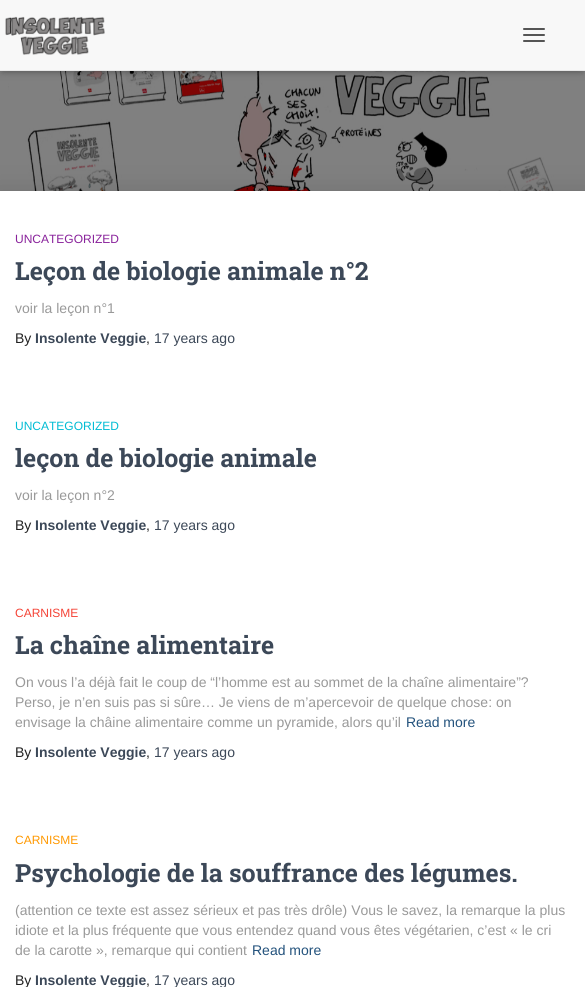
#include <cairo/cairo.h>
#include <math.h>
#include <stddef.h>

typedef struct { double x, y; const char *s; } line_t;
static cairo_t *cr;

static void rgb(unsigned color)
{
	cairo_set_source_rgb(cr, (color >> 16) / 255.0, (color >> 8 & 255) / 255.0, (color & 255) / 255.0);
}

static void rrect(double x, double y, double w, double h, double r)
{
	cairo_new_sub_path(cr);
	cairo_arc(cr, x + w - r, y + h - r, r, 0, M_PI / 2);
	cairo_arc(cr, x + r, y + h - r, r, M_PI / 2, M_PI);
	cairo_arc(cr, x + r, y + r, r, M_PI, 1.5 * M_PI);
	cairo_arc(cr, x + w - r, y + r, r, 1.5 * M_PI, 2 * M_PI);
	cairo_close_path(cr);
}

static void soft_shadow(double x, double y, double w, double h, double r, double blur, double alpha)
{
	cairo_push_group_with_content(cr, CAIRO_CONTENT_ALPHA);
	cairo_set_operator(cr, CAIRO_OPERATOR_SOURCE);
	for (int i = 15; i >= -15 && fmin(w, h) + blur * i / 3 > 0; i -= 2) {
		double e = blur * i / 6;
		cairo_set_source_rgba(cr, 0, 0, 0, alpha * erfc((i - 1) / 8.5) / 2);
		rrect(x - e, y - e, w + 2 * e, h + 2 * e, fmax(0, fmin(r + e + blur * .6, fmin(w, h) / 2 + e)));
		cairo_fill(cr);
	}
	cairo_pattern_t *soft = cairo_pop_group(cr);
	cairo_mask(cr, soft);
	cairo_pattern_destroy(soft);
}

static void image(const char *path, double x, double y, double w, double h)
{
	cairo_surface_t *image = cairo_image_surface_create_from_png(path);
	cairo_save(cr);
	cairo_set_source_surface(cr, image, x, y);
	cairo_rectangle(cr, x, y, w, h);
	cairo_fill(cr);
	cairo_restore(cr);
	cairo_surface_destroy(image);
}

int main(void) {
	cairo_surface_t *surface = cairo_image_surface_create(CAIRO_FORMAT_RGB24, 585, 987);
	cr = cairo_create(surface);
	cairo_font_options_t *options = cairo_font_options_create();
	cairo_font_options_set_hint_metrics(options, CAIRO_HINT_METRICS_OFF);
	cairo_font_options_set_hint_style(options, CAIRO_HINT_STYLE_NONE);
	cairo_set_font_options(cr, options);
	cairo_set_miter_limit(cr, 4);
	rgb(0x808080);
	cairo_paint(cr);
	image("img/2.png", 8, 71, 550, 120);
	rgb(0x000000);
	soft_shadow(2, 6, 581, 67, 0, 2.5, 0.1);
	soft_shadow(0, 1, 585, 71, 0, 5, 0.12);
	soft_shadow(6, 7, 573, 59, 0, 5, 0.42);
	rgb(0xf8f8f8);
	cairo_rectangle(cr, 0, 0, 585, 70);
	cairo_fill(cr);
	rgb(0xe7e7e7);
	cairo_rectangle(cr, 0, 70, 585, 1);
	cairo_fill(cr);
	image("img/1.png", 5, 16, 100, 39);
	rgb(0x555555);
	rrect(523, 28, 22, 2, 1);
	cairo_fill(cr);
	rrect(523, 34, 22, 2, 1);
	cairo_fill(cr);
	rrect(523, 40, 22, 2, 1);
	cairo_fill(cr);
	rgb(0x000000);
	soft_shadow(-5, 192, 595, 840, 0, 15, 0.12);
	rgb(0xffffff);
	cairo_rectangle(cr, 0, 191, 585, 796);
	cairo_fill(cr);
	cairo_select_font_face(cr, "Liberation Sans", CAIRO_FONT_SLANT_NORMAL, CAIRO_FONT_WEIGHT_NORMAL);
	cairo_set_font_size(cr, 12);
	rgb(0x89229b);
	cairo_move_to(cr, 15, 243);
	cairo_show_text(cr, "UNCATEGORIZED");
	cairo_select_font_face(cr, "Roboto Slab", CAIRO_FONT_SLANT_NORMAL, CAIRO_FONT_WEIGHT_BOLD);
	cairo_set_font_size(cr, 25);
	rgb(0x3c4858);
	cairo_move_to(cr, 15, 280);
	cairo_show_text(cr, "Leçon de biologie animale n°2");
	cairo_select_font_face(cr, "Liberation Sans", CAIRO_FONT_SLANT_NORMAL, CAIRO_FONT_WEIGHT_NORMAL);
	cairo_set_font_size(cr, 14);
	rgb(0x999999);
	cairo_move_to(cr, 15, 313);
	cairo_show_text(cr, "voir la leçon n°1");
	rgb(0x212121);
	cairo_move_to(cr, 15, 343);
	cairo_show_text(cr, "By");
	cairo_select_font_face(cr, "Liberation Sans", CAIRO_FONT_SLANT_NORMAL, CAIRO_FONT_WEIGHT_BOLD);
	rgb(0x3c4858);
	cairo_move_to(cr, 35, 343);
	cairo_show_text(cr, "Insolente Veggie");
	cairo_select_font_face(cr, "Liberation Sans", CAIRO_FONT_SLANT_NORMAL, CAIRO_FONT_WEIGHT_NORMAL);
	rgb(0x212121);
	cairo_move_to(cr, 146, 343);
	cairo_show_text(cr, ",");
	rgb(0x3c4858);
	cairo_move_to(cr, 154, 343);
	cairo_show_text(cr, "17 years ago");
	cairo_set_font_size(cr, 12);
	rgb(0x00bcd4);
	cairo_move_to(cr, 15, 430);
	cairo_show_text(cr, "UNCATEGORIZED");
	cairo_select_font_face(cr, "Roboto Slab", CAIRO_FONT_SLANT_NORMAL, CAIRO_FONT_WEIGHT_BOLD);
	cairo_set_font_size(cr, 25);
	rgb(0x3c4858);
	cairo_move_to(cr, 15, 467);
	cairo_show_text(cr, "leçon de biologie animale");
	cairo_select_font_face(cr, "Liberation Sans", CAIRO_FONT_SLANT_NORMAL, CAIRO_FONT_WEIGHT_NORMAL);
	cairo_set_font_size(cr, 14);
	rgb(0x999999);
	cairo_move_to(cr, 15, 500);
	cairo_show_text(cr, "voir la leçon n°2");
	rgb(0x212121);
	cairo_move_to(cr, 15, 530);
	cairo_show_text(cr, "By");
	cairo_select_font_face(cr, "Liberation Sans", CAIRO_FONT_SLANT_NORMAL, CAIRO_FONT_WEIGHT_BOLD);
	rgb(0x3c4858);
	cairo_move_to(cr, 35, 530);
	cairo_show_text(cr, "Insolente Veggie");
	cairo_select_font_face(cr, "Liberation Sans", CAIRO_FONT_SLANT_NORMAL, CAIRO_FONT_WEIGHT_NORMAL);
	rgb(0x212121);
	cairo_move_to(cr, 146, 530);
	cairo_show_text(cr, ",");
	rgb(0x3c4858);
	cairo_move_to(cr, 154, 530);
	cairo_show_text(cr, "17 years ago");
	cairo_set_font_size(cr, 12);
	rgb(0xf44336);
	cairo_move_to(cr, 15, 617);
	cairo_show_text(cr, "CARNISME");
	cairo_select_font_face(cr, "Roboto Slab", CAIRO_FONT_SLANT_NORMAL, CAIRO_FONT_WEIGHT_BOLD);
	cairo_set_font_size(cr, 25);
	rgb(0x3c4858);
	cairo_move_to(cr, 15, 654);
	cairo_show_text(cr, "La chaîne alimentaire");
	cairo_select_font_face(cr, "Liberation Sans", CAIRO_FONT_SLANT_NORMAL, CAIRO_FONT_WEIGHT_NORMAL);
	cairo_set_font_size(cr, 14);
	rgb(0x999999);
	{
		static const line_t items[] = {
			{15, 687, "On vous l’a déjà fait le coup de “l’homme est au sommet de la chaîne alimentaire”?"},
			{15, 707, "Perso, je n’en suis pas si sûre… Je viens de m’apercevoir de quelque chose: on"},
			{15, 727, "envisage la châine alimentaire comme un pyramide, alors qu’il"},
		};
		for (size_t i = 0; i < sizeof items / sizeof *items; i++) {
			cairo_move_to(cr, items[i].x, items[i].y);
			cairo_show_text(cr, items[i].s);
		}
	}
	rgb(0x23527c);
	cairo_move_to(cr, 406, 727);
	cairo_show_text(cr, "Read more");
	rgb(0x212121);
	cairo_move_to(cr, 15, 757);
	cairo_show_text(cr, "By");
	cairo_select_font_face(cr, "Liberation Sans", CAIRO_FONT_SLANT_NORMAL, CAIRO_FONT_WEIGHT_BOLD);
	rgb(0x3c4858);
	cairo_move_to(cr, 35, 757);
	cairo_show_text(cr, "Insolente Veggie");
	cairo_select_font_face(cr, "Liberation Sans", CAIRO_FONT_SLANT_NORMAL, CAIRO_FONT_WEIGHT_NORMAL);
	rgb(0x212121);
	cairo_move_to(cr, 146, 757);
	cairo_show_text(cr, ",");
	rgb(0x3c4858);
	cairo_move_to(cr, 154, 757);
	cairo_show_text(cr, "17 years ago");
	cairo_set_font_size(cr, 12);
	rgb(0xff9800);
	cairo_move_to(cr, 15, 844);
	cairo_show_text(cr, "CARNISME");
	cairo_select_font_face(cr, "Roboto Slab", CAIRO_FONT_SLANT_NORMAL, CAIRO_FONT_WEIGHT_BOLD);
	cairo_set_font_size(cr, 25);
	rgb(0x3c4858);
	cairo_move_to(cr, 15, 882);
	cairo_show_text(cr, "Psychologie de la souffrance des légumes.");
	cairo_select_font_face(cr, "Liberation Sans", CAIRO_FONT_SLANT_NORMAL, CAIRO_FONT_WEIGHT_NORMAL);
	cairo_set_font_size(cr, 14);
	rgb(0x999999);
	{
		static const line_t items[] = {
			{15, 915, "(attention ce texte est assez sérieux et pas très drôle) Vous le savez, la remarque la plus"},
			{15, 935, "idiote et la plus fréquente que vous entendez quand vous êtes végétarien, c’est « le cri"},
			{15, 955, "de la carotte », remarque qui contient"},
		};
		for (size_t i = 0; i < sizeof items / sizeof *items; i++) {
			cairo_move_to(cr, items[i].x, items[i].y);
			cairo_show_text(cr, items[i].s);
		}
	}
	rgb(0x23527c);
	cairo_move_to(cr, 252, 955);
	cairo_show_text(cr, "Read more");
	rgb(0x212121);
	cairo_move_to(cr, 15, 985);
	cairo_show_text(cr, "By");
	cairo_select_font_face(cr, "Liberation Sans", CAIRO_FONT_SLANT_NORMAL, CAIRO_FONT_WEIGHT_BOLD);
	rgb(0x3c4858);
	cairo_move_to(cr, 35, 985);
	cairo_show_text(cr, "Insolente Veggie");
	cairo_select_font_face(cr, "Liberation Sans", CAIRO_FONT_SLANT_NORMAL, CAIRO_FONT_WEIGHT_NORMAL);
	rgb(0x212121);
	cairo_move_to(cr, 146, 985);
	cairo_show_text(cr, ",");
	rgb(0x3c4858);
	cairo_move_to(cr, 154, 985);
	cairo_show_text(cr, "17 years ago");
	cairo_surface_write_to_png(surface, "page.png");
	cairo_font_options_destroy(options);
	cairo_destroy(cr);
	cairo_surface_destroy(surface);
	return 0;
}
